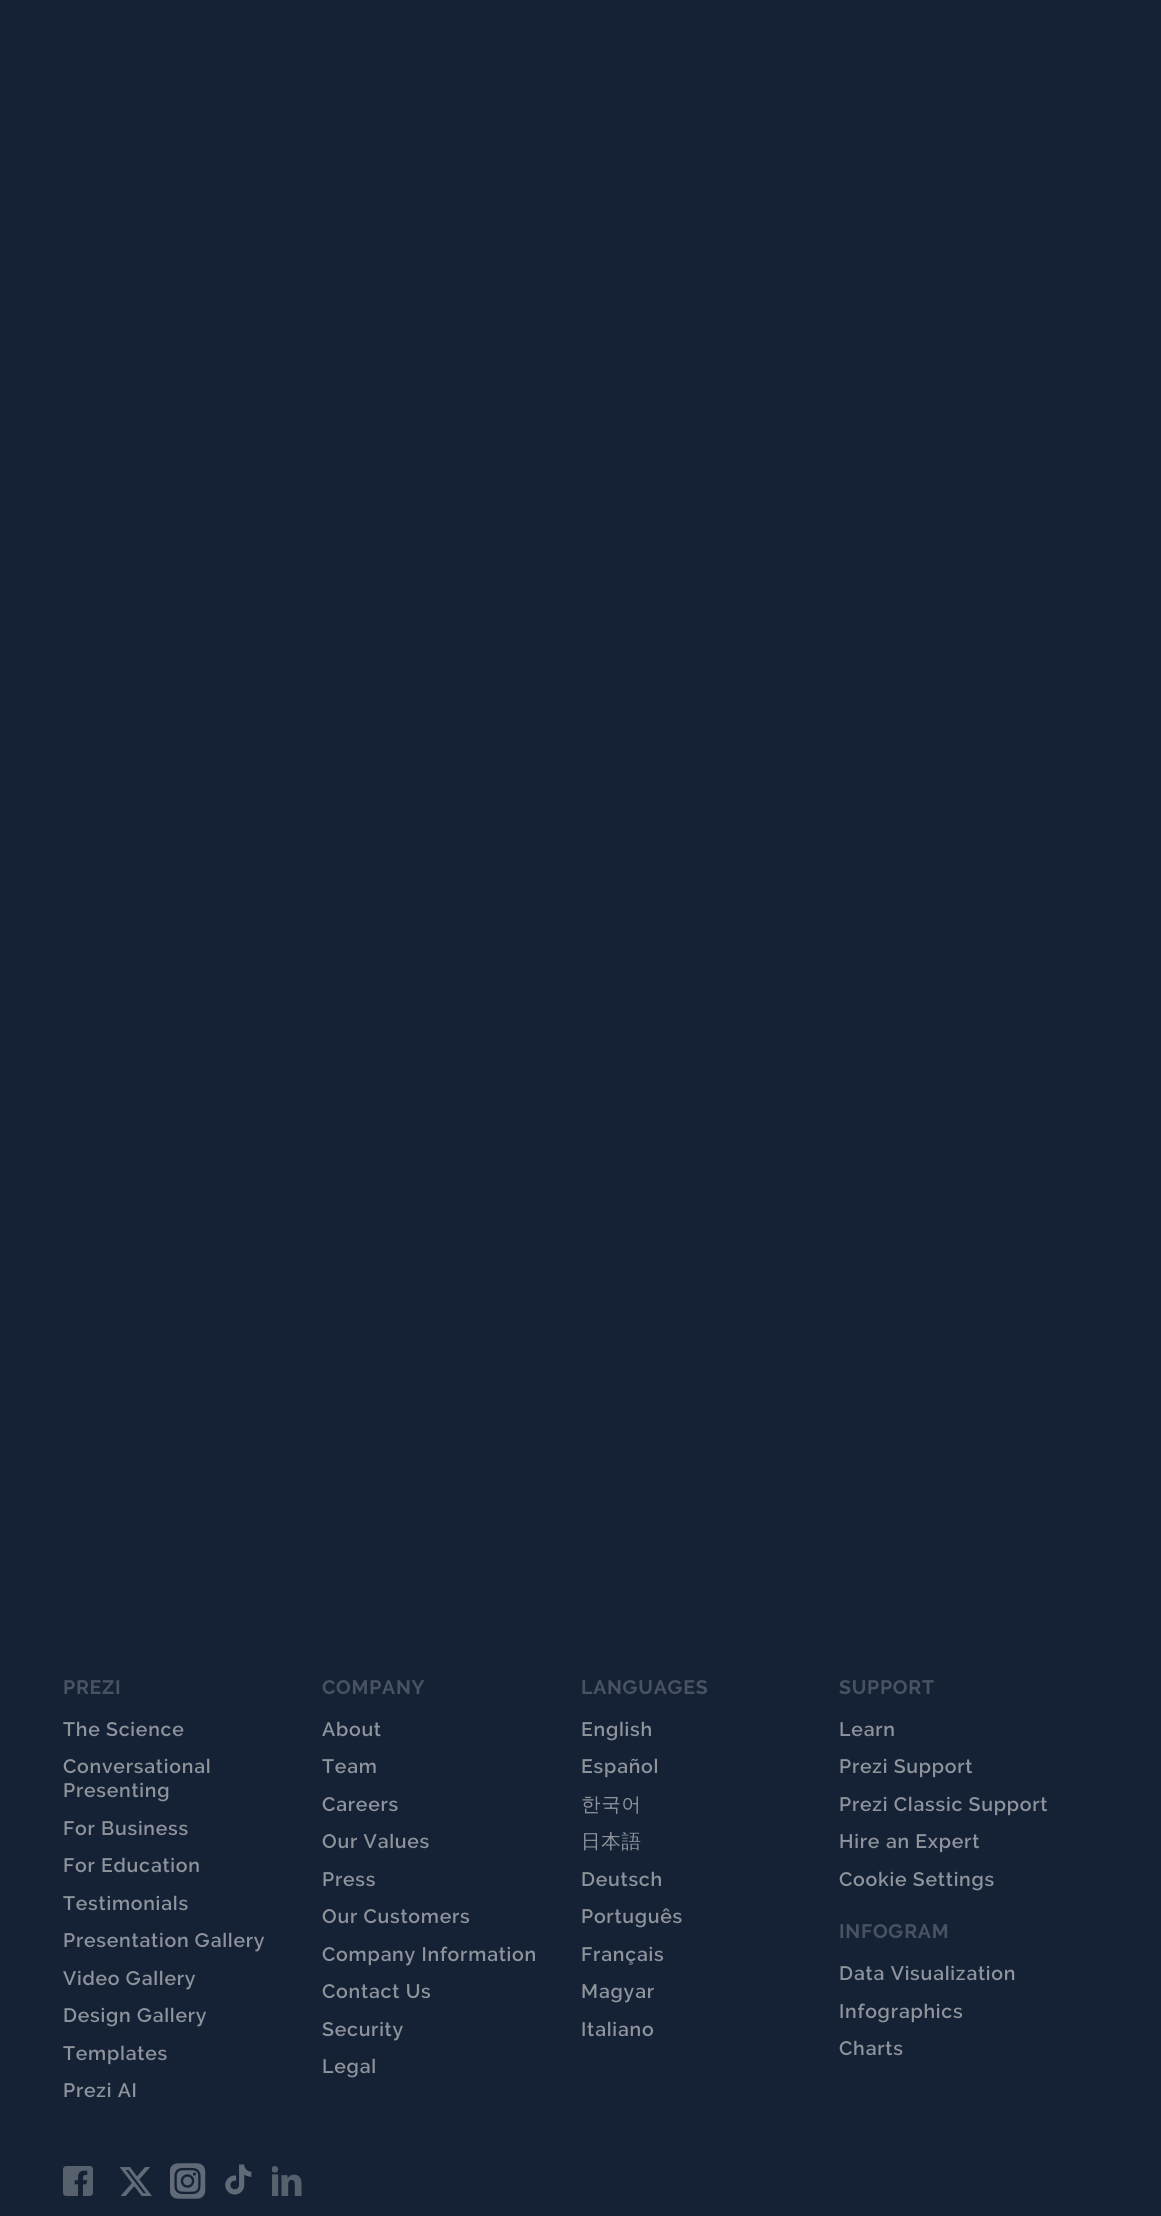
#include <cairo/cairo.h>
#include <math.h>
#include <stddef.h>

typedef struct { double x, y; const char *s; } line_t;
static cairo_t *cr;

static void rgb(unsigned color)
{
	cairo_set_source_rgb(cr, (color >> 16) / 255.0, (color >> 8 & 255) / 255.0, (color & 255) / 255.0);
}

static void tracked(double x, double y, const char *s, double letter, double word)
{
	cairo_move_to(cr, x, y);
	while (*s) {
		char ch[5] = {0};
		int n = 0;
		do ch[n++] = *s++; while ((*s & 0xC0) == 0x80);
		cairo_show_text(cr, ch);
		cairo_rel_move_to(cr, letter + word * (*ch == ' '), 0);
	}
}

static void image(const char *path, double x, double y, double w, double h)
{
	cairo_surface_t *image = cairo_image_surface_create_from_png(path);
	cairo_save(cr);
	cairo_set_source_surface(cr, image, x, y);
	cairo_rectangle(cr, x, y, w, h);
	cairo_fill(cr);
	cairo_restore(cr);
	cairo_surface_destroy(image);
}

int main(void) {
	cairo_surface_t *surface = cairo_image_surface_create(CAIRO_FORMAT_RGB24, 1161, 2216);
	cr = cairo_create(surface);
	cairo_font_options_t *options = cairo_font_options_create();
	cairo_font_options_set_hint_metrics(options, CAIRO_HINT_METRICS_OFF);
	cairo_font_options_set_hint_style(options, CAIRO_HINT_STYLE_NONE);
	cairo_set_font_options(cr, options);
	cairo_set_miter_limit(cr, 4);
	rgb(0x152235);
	cairo_paint(cr);
	image("img/1.png", 63, 2166, 30, 30);
	image("img/2.png", 119, 2167, 33, 29);
	image("img/3.png", 170, 2163, 36, 36);
	image("img/4.png", 225, 2164, 27, 31);
	image("img/5.png", 272, 2166, 30, 30);
	cairo_select_font_face(cr, "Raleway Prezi", CAIRO_FONT_SLANT_NORMAL, CAIRO_FONT_WEIGHT_BOLD);
	cairo_set_font_size(cr, 19.5);
	rgb(0x475262);
	tracked(63, 1694, "PREZI", 0.75, 0);
	cairo_select_font_face(cr, "Raleway Prezi SemiBold", CAIRO_FONT_SLANT_NORMAL, CAIRO_FONT_WEIGHT_NORMAL);
	rgb(0x8e939c);
	{
		static const line_t items[] = {
			{63, 1736, "The Science"},
			{63, 1773, "Conversational"},
			{63, 1797, "Presenting"},
			{63, 1835, "For Business"},
			{63, 1872, "For Education"},
			{63, 1910, "Testimonials"},
			{63, 1947, "Presentation Gallery"},
			{63, 1985, "Video Gallery"},
			{63, 2022, "Design Gallery"},
			{63, 2060, "Templates"},
			{63, 2097, "Prezi AI"},
		};
		for (size_t i = 0; i < sizeof items / sizeof *items; i++) {
			tracked(items[i].x, items[i].y, items[i].s, 0.75, 0);
		}
	}
	cairo_select_font_face(cr, "Raleway Prezi", CAIRO_FONT_SLANT_NORMAL, CAIRO_FONT_WEIGHT_BOLD);
	rgb(0x475262);
	tracked(322, 1694, "COMPANY", 0.75, 0);
	cairo_select_font_face(cr, "Raleway Prezi SemiBold", CAIRO_FONT_SLANT_NORMAL, CAIRO_FONT_WEIGHT_NORMAL);
	rgb(0x8e939c);
	{
		static const line_t items[] = {
			{322, 1736, "About"},
			{322, 1773, "Team"},
			{322, 1811, "Careers"},
			{322, 1848, "Our Values"},
			{322, 1886, "Press"},
			{322, 1923, "Our Customers"},
			{322, 1961, "Company Information"},
			{322, 1998, "Contact Us"},
			{322, 2036, "Security"},
			{322, 2073, "Legal"},
		};
		for (size_t i = 0; i < sizeof items / sizeof *items; i++) {
			tracked(items[i].x, items[i].y, items[i].s, 0.75, 0);
		}
	}
	cairo_select_font_face(cr, "Raleway Prezi", CAIRO_FONT_SLANT_NORMAL, CAIRO_FONT_WEIGHT_BOLD);
	rgb(0x475262);
	tracked(581, 1694, "LANGUAGES", 0.75, 0);
	cairo_select_font_face(cr, "Raleway Prezi SemiBold", CAIRO_FONT_SLANT_NORMAL, CAIRO_FONT_WEIGHT_NORMAL);
	rgb(0x8e939c);
	tracked(581, 1736, "English", 0.75, 0);
	tracked(581, 1773, "Español", 0.75, 0);
	cairo_select_font_face(cr, "WenQuanYi Zen Hei Medium", CAIRO_FONT_SLANT_NORMAL, CAIRO_FONT_WEIGHT_NORMAL);
	tracked(581, 1811, "한국어", 0.75, 0);
	tracked(581, 1848, "日本語", 0.75, 0);
	cairo_select_font_face(cr, "Raleway Prezi SemiBold", CAIRO_FONT_SLANT_NORMAL, CAIRO_FONT_WEIGHT_NORMAL);
	{
		static const line_t items[] = {
			{581, 1886, "Deutsch"},
			{581, 1923, "Português"},
			{581, 1961, "Français"},
			{581, 1998, "Magyar"},
			{581, 2036, "Italiano"},
		};
		for (size_t i = 0; i < sizeof items / sizeof *items; i++) {
			tracked(items[i].x, items[i].y, items[i].s, 0.75, 0);
		}
	}
	cairo_select_font_face(cr, "Raleway Prezi", CAIRO_FONT_SLANT_NORMAL, CAIRO_FONT_WEIGHT_BOLD);
	rgb(0x475262);
	tracked(839, 1694, "SUPPORT", 0.75, 0);
	cairo_select_font_face(cr, "Raleway Prezi SemiBold", CAIRO_FONT_SLANT_NORMAL, CAIRO_FONT_WEIGHT_NORMAL);
	rgb(0x8e939c);
	{
		static const line_t items[] = {
			{839, 1736, "Learn"},
			{839, 1773, "Prezi Support"},
			{839, 1811, "Prezi Classic Support"},
			{839, 1848, "Hire an Expert"},
			{839, 1886, "Cookie Settings"},
		};
		for (size_t i = 0; i < sizeof items / sizeof *items; i++) {
			tracked(items[i].x, items[i].y, items[i].s, 0.75, 0);
		}
	}
	cairo_select_font_face(cr, "Raleway Prezi", CAIRO_FONT_SLANT_NORMAL, CAIRO_FONT_WEIGHT_BOLD);
	rgb(0x475262);
	tracked(839, 1938, "INFOGRAM", 0.75, 0);
	cairo_select_font_face(cr, "Raleway Prezi SemiBold", CAIRO_FONT_SLANT_NORMAL, CAIRO_FONT_WEIGHT_NORMAL);
	rgb(0x8e939c);
	{
		static const line_t items[] = {
			{839, 1980, "Data Visualization"},
			{839, 2018, "Infographics"},
			{839, 2055, "Charts"},
		};
		for (size_t i = 0; i < sizeof items / sizeof *items; i++) {
			tracked(items[i].x, items[i].y, items[i].s, 0.75, 0);
		}
	}
	cairo_surface_write_to_png(surface, "page.png");
	cairo_font_options_destroy(options);
	cairo_destroy(cr);
	cairo_surface_destroy(surface);
	return 0;
}
